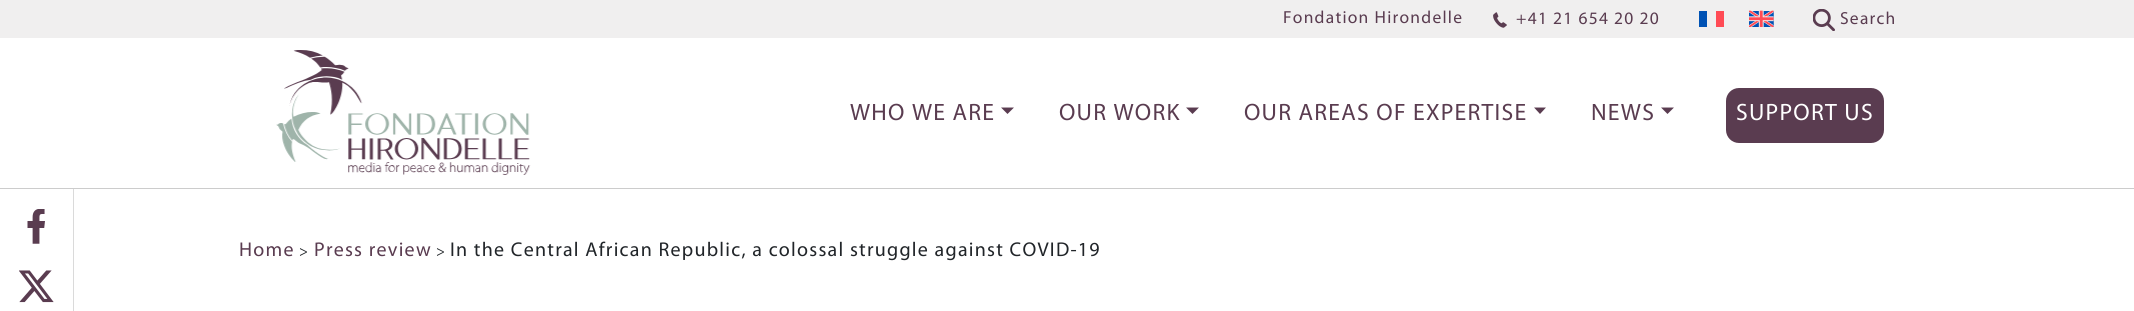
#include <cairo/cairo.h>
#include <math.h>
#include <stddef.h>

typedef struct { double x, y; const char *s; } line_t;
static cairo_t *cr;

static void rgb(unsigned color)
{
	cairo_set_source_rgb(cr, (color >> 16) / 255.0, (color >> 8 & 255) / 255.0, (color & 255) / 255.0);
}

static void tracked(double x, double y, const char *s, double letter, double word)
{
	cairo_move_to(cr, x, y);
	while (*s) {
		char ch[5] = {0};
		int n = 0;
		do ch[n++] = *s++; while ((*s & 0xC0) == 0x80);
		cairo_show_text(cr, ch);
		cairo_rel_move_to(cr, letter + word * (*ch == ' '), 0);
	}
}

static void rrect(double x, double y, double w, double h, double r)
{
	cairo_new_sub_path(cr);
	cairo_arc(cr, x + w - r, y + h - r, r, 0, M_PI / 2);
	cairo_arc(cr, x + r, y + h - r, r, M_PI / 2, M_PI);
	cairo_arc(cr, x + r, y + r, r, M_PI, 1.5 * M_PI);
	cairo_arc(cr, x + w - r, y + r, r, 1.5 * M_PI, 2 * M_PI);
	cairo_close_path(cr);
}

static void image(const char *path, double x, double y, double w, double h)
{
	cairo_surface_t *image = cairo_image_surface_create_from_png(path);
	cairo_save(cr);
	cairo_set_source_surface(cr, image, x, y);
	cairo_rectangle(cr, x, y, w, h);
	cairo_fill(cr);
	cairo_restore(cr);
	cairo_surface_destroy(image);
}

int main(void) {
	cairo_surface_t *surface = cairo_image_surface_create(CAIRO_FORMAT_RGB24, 2134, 311);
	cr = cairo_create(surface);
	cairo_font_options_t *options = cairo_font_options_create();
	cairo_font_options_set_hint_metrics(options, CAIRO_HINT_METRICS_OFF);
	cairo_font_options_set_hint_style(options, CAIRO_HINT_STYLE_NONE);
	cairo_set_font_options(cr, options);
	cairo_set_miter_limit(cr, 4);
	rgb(0xffffff);
	cairo_paint(cr);
	rgb(0xcccccc);
	cairo_rectangle(cr, 0, 188, 2134, 1);
	cairo_fill(cr);
	rgb(0xf0efef);
	cairo_rectangle(cr, 0, 0, 2134, 38);
	cairo_fill(cr);
	image("img/1.png", 1493, 12, 14, 16);
	rgb(0x0052b4);
	cairo_rectangle(cr, 1699, 11, 8, 16);
	cairo_fill(cr);
	rgb(0xff4b55);
	cairo_rectangle(cr, 1716, 11, 8, 16);
	cairo_fill(cr);
	image("img/2.png", 1749, 10, 25, 17);
	image("img/3.png", 1813, 9, 22, 22);
	rgb(0xdadada);
	cairo_rectangle(cr, 73, 189, 1, 122);
	cairo_fill(cr);
	image("img/4.png", 27, 209, 18, 35);
	image("img/5.png", 19, 270, 35, 33);
	image("img/6.png", 276, 50, 255, 125);
	rgb(0x5a3c50);
	cairo_new_path(cr);
	cairo_move_to(cr, 1001, 107.5);
	cairo_line_to(cr, 1014, 107.5);
	cairo_line_to(cr, 1007.5, 114);
	cairo_close_path(cr);
	cairo_fill(cr);
	cairo_new_path(cr);
	cairo_move_to(cr, 1186, 107.5);
	cairo_line_to(cr, 1199, 107.5);
	cairo_line_to(cr, 1192.5, 114);
	cairo_close_path(cr);
	cairo_fill(cr);
	cairo_new_path(cr);
	cairo_move_to(cr, 1534, 107.5);
	cairo_line_to(cr, 1546, 107.5);
	cairo_line_to(cr, 1540, 114);
	cairo_close_path(cr);
	cairo_fill(cr);
	cairo_new_path(cr);
	cairo_move_to(cr, 1661, 107.5);
	cairo_line_to(cr, 1674, 107.5);
	cairo_line_to(cr, 1667.5, 114);
	cairo_close_path(cr);
	cairo_fill(cr);
	rrect(1726, 88, 158, 55, 13);
	cairo_fill(cr);
	cairo_select_font_face(cr, "Myriad", CAIRO_FONT_SLANT_NORMAL, CAIRO_FONT_WEIGHT_NORMAL);
	cairo_set_font_size(cr, 17.5);
	{
		static const line_t items[] = {
			{1283, 23, "Fondation Hirondelle"},
			{1516, 24, "+41 21 654 20 20"},
			{1840, 24, "Search"},
		};
		for (size_t i = 0; i < sizeof items / sizeof *items; i++) {
			tracked(items[i].x, items[i].y, items[i].s, 1.25, 0);
		}
	}
	cairo_set_font_size(cr, 23.75);
	{
		static const line_t items[] = {
			{850, 120, "WHO WE ARE"},
			{1059, 120, "OUR WORK"},
			{1244, 120, "OUR AREAS OF EXPERTISE"},
			{1591, 120, "NEWS"},
		};
		for (size_t i = 0; i < sizeof items / sizeof *items; i++) {
			tracked(items[i].x, items[i].y, items[i].s, 1.25, 0);
		}
	}
	rgb(0xffffff);
	tracked(1736, 120, "SUPPORT US", 1.25, 0);
	cairo_set_font_size(cr, 20);
	rgb(0x5a3c50);
	tracked(239, 256, "Home", 1.25, 0);
	cairo_set_font_size(cr, 15);
	rgb(0x212529);
	tracked(299, 256, ">", 1.25, 0);
	cairo_set_font_size(cr, 20);
	rgb(0x5a3c50);
	tracked(314, 256, "Press review", 1.25, 0);
	cairo_set_font_size(cr, 15);
	rgb(0x212529);
	tracked(436, 256, ">", 1.25, 0);
	cairo_set_font_size(cr, 20);
	tracked(450, 256, "In the Central African Republic, a colossal struggle against COVID-19", 1.25, 0);
	cairo_surface_write_to_png(surface, "page.png");
	cairo_font_options_destroy(options);
	cairo_destroy(cr);
	cairo_surface_destroy(surface);
	return 0;
}
